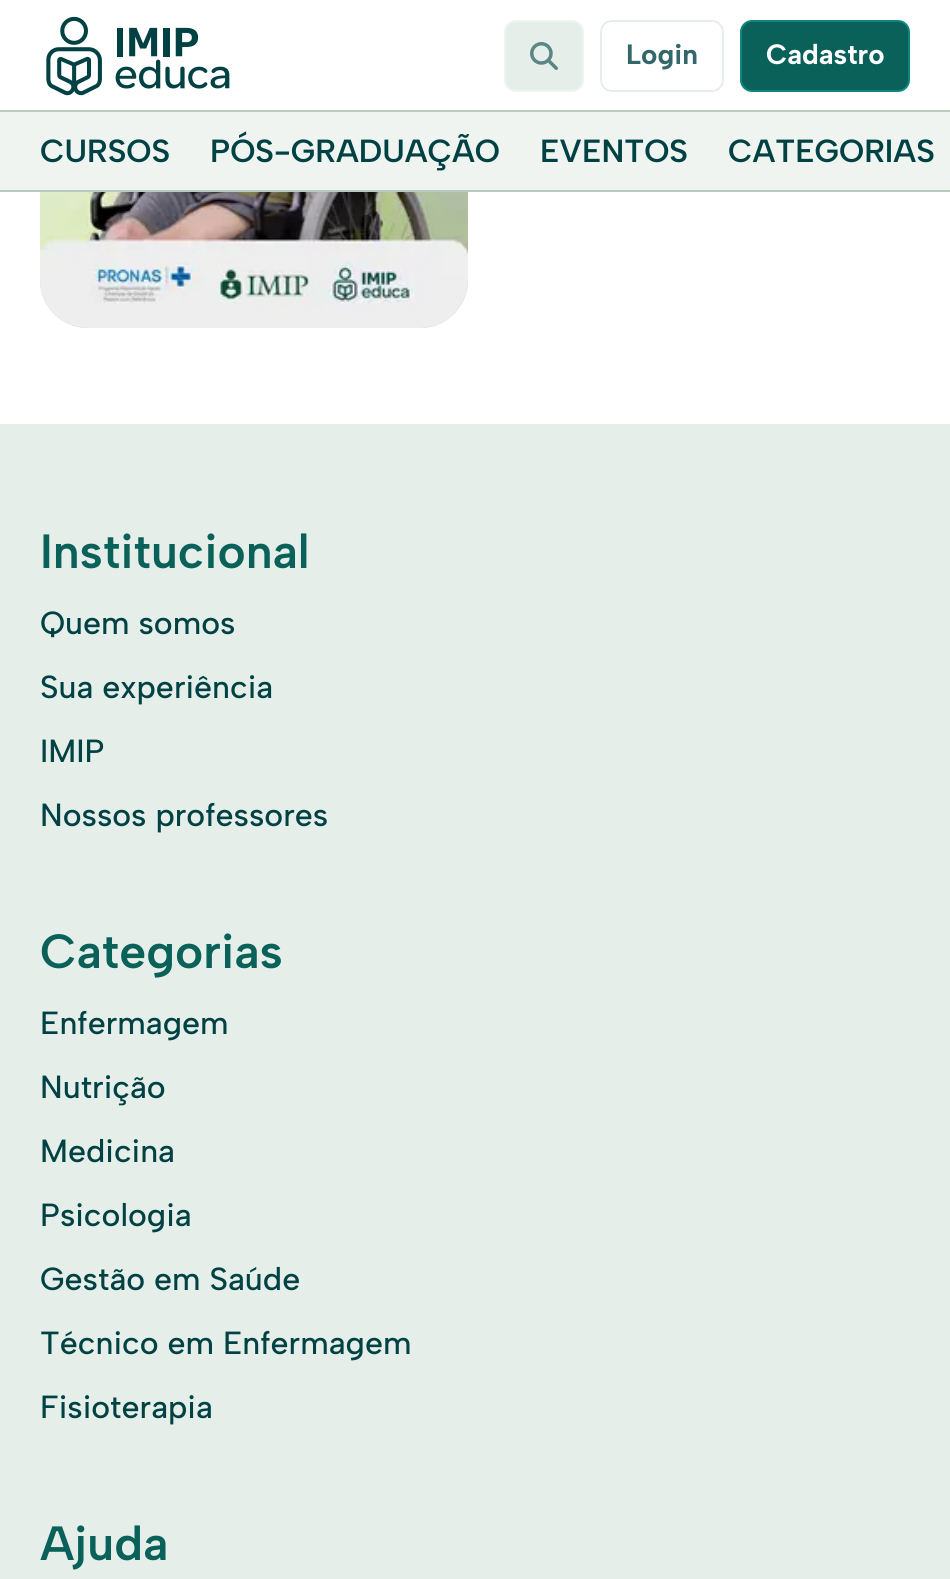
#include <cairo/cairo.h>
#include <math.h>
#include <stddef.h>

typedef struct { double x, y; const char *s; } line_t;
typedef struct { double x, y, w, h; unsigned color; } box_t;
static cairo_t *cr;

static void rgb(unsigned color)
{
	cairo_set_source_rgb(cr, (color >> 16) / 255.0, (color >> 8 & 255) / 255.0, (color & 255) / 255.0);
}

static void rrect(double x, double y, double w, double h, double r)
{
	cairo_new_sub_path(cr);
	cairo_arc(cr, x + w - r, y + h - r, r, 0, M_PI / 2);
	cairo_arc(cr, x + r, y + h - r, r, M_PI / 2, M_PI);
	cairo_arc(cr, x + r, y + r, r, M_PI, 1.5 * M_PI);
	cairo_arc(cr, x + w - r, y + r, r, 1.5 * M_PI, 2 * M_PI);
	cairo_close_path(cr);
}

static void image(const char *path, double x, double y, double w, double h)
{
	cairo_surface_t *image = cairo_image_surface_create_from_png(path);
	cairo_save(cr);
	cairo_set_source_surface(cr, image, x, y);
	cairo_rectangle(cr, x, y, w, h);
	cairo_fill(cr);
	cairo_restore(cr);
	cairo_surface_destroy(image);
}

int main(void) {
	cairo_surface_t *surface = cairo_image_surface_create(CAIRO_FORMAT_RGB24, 950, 1579);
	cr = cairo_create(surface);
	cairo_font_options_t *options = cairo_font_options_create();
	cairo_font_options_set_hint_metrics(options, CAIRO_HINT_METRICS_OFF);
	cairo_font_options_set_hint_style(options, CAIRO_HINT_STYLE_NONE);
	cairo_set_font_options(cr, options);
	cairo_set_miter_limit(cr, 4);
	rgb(0xffffff);
	cairo_paint(cr);
	rgb(0xbbcabf);
	rrect(40, -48, 428, 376, 48);
	cairo_fill(cr);
	image("img/1.png", 40, 192, 428, 136);
	rgb(0xffffff);
	cairo_rectangle(cr, 40, 0, 428, 110);
	cairo_fill(cr);
	rgb(0xbbcabf);
	cairo_rectangle(cr, 0, 110, 950, 2);
	cairo_fill(cr);
	image("img/2.png", 46, 16, 184, 80);
	rgb(0xe5eee9);
	rrect(505, 21, 78, 70, 11);
	cairo_fill_preserve(cr);
	rgb(0xeff4f1);
	cairo_stroke(cr);
	image("img/3.png", 530, 42, 28, 28);
	rrect(601, 21, 122, 70, 11);
	rgb(0xe5eee9);
	cairo_stroke(cr);
	rgb(0x0a615a);
	rrect(741, 21, 168, 70, 11);
	cairo_fill_preserve(cr);
	rgb(0x0d877d);
	cairo_stroke(cr);
	{
		static const box_t items[] = {
			{0, 112, 950, 78, 0xeff4f1},
			{0, 190, 950, 2, 0xbbcabf},
			{0, 424, 950, 1155, 0xe5eee9},
		};
		for (size_t i = 0; i < sizeof items / sizeof *items; i++) {
			rgb(items[i].color);
			cairo_rectangle(cr, items[i].x, items[i].y, items[i].w, items[i].h);
			cairo_fill(cr);
		}
	}
	cairo_select_font_face(cr, "Albert Sans", CAIRO_FONT_SLANT_NORMAL, CAIRO_FONT_WEIGHT_BOLD);
	cairo_set_font_size(cr, 28);
	rgb(0x336769);
	cairo_move_to(cr, 626, 64);
	cairo_show_text(cr, "Login");
	rgb(0xffffff);
	cairo_move_to(cr, 766, 64);
	cairo_show_text(cr, "Cadastro");
	cairo_select_font_face(cr, "Albert Sans SemiBold", CAIRO_FONT_SLANT_NORMAL, CAIRO_FONT_WEIGHT_NORMAL);
	cairo_set_font_size(cr, 32);
	rgb(0x004144);
	{
		static const line_t items[] = {
			{40, 162, "CURSOS"},
			{210, 162, "PÓS-GRADUAÇÃO"},
			{540, 162, "EVENTOS"},
			{728, 162, "CATEGORIAS"},
		};
		for (size_t i = 0; i < sizeof items / sizeof *items; i++) {
			cairo_move_to(cr, items[i].x, items[i].y);
			cairo_show_text(cr, items[i].s);
		}
	}
	cairo_set_font_size(cr, 48);
	rgb(0x0a615a);
	cairo_move_to(cr, 40, 568);
	cairo_show_text(cr, "Institucional");
	cairo_select_font_face(cr, "Albert Sans Medium", CAIRO_FONT_SLANT_NORMAL, CAIRO_FONT_WEIGHT_NORMAL);
	cairo_set_font_size(cr, 32);
	rgb(0x004144);
	{
		static const line_t items[] = {
			{40, 634, "Quem somos"},
			{40, 698, "Sua experiência"},
			{40, 762, "IMIP"},
			{40, 826, "Nossos professores"},
		};
		for (size_t i = 0; i < sizeof items / sizeof *items; i++) {
			cairo_move_to(cr, items[i].x, items[i].y);
			cairo_show_text(cr, items[i].s);
		}
	}
	cairo_select_font_face(cr, "Albert Sans SemiBold", CAIRO_FONT_SLANT_NORMAL, CAIRO_FONT_WEIGHT_NORMAL);
	cairo_set_font_size(cr, 48);
	rgb(0x0a615a);
	cairo_move_to(cr, 40, 968);
	cairo_show_text(cr, "Categorias");
	cairo_select_font_face(cr, "Albert Sans Medium", CAIRO_FONT_SLANT_NORMAL, CAIRO_FONT_WEIGHT_NORMAL);
	cairo_set_font_size(cr, 32);
	rgb(0x004144);
	{
		static const line_t items[] = {
			{40, 1034, "Enfermagem"},
			{40, 1098, "Nutrição"},
			{40, 1162, "Medicina"},
			{40, 1226, "Psicologia"},
			{40, 1290, "Gestão em Saúde"},
			{40, 1354, "Técnico em Enfermagem"},
			{40, 1418, "Fisioterapia"},
		};
		for (size_t i = 0; i < sizeof items / sizeof *items; i++) {
			cairo_move_to(cr, items[i].x, items[i].y);
			cairo_show_text(cr, items[i].s);
		}
	}
	cairo_select_font_face(cr, "Albert Sans SemiBold", CAIRO_FONT_SLANT_NORMAL, CAIRO_FONT_WEIGHT_NORMAL);
	cairo_set_font_size(cr, 48);
	rgb(0x0a615a);
	cairo_move_to(cr, 40, 1560);
	cairo_show_text(cr, "Ajuda");
	cairo_surface_write_to_png(surface, "page.png");
	cairo_font_options_destroy(options);
	cairo_destroy(cr);
	cairo_surface_destroy(surface);
	return 0;
}
